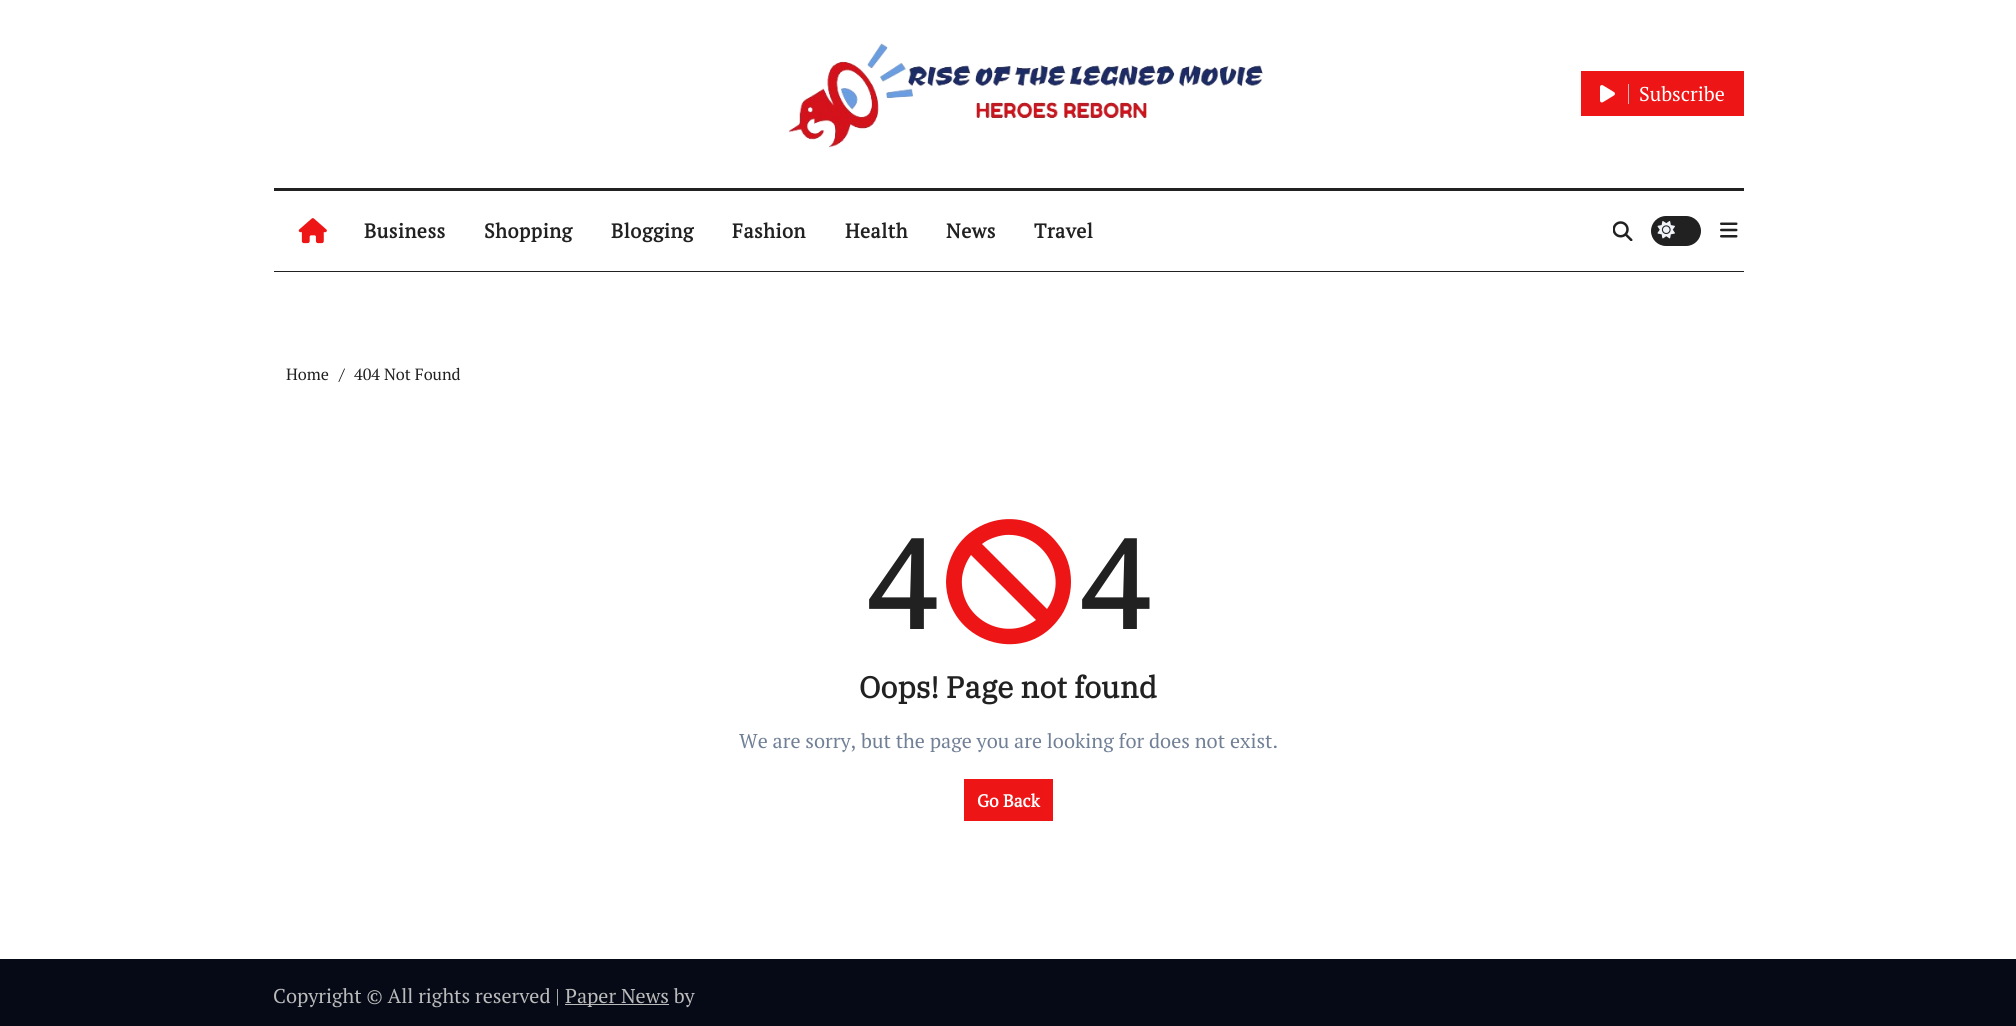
#include <cairo/cairo.h>
#include <math.h>
#include <stddef.h>

typedef struct { double x, y; const char *s; } line_t;
typedef struct { double x, y, w, h; unsigned color; } box_t;
static cairo_t *cr;

static void rgb(unsigned color)
{
	cairo_set_source_rgb(cr, (color >> 16) / 255.0, (color >> 8 & 255) / 255.0, (color & 255) / 255.0);
}

static void tracked(double x, double y, const char *s, double letter, double word)
{
	cairo_move_to(cr, x, y);
	while (*s) {
		char ch[5] = {0};
		int n = 0;
		do ch[n++] = *s++; while ((*s & 0xC0) == 0x80);
		cairo_show_text(cr, ch);
		cairo_rel_move_to(cr, letter + word * (*ch == ' '), 0);
	}
}

static void rrect(double x, double y, double w, double h, double r)
{
	cairo_new_sub_path(cr);
	cairo_arc(cr, x + w - r, y + h - r, r, 0, M_PI / 2);
	cairo_arc(cr, x + r, y + h - r, r, M_PI / 2, M_PI);
	cairo_arc(cr, x + r, y + r, r, M_PI, 1.5 * M_PI);
	cairo_arc(cr, x + w - r, y + r, r, 1.5 * M_PI, 2 * M_PI);
	cairo_close_path(cr);
}

static void image(const char *path, double x, double y, double w, double h)
{
	cairo_surface_t *image = cairo_image_surface_create_from_png(path);
	cairo_save(cr);
	cairo_set_source_surface(cr, image, x, y);
	cairo_rectangle(cr, x, y, w, h);
	cairo_fill(cr);
	cairo_restore(cr);
	cairo_surface_destroy(image);
}

int main(void) {
	cairo_surface_t *surface = cairo_image_surface_create(CAIRO_FORMAT_RGB24, 2016, 1026);
	cr = cairo_create(surface);
	cairo_font_options_t *options = cairo_font_options_create();
	cairo_font_options_set_hint_metrics(options, CAIRO_HINT_METRICS_OFF);
	cairo_font_options_set_hint_style(options, CAIRO_HINT_STYLE_NONE);
	cairo_set_font_options(cr, options);
	cairo_set_miter_limit(cr, 4);
	rgb(0xffffff);
	cairo_paint(cr);
	image("img/1.png", 788, 43, 475, 105);
	rgb(0xed1515);
	cairo_rectangle(cr, 1581, 71, 163, 45);
	cairo_fill(cr);
	image("img/2.png", 1600, 85, 15, 18);
	{
		static const box_t items[] = {
			{1628, 84, 1, 20, 0xbdbdbd},
			{274, 188, 1470, 3, 0x212121},
			{274, 271, 1470, 1, 0x212121},
		};
		for (size_t i = 0; i < sizeof items / sizeof *items; i++) {
			rgb(items[i].color);
			cairo_rectangle(cr, items[i].x, items[i].y, items[i].w, items[i].h);
			cairo_fill(cr);
		}
	}
	image("img/3.png", 298, 218, 29, 26);
	image("img/4.png", 1613, 221, 20, 20);
	rrect(1651, 216, 50, 30, 15);
	cairo_fill(cr);
	image("img/5.png", 1657, 221, 18, 18);
	image("img/6.png", 1720, 222, 18, 16);
	rgb(0xed1515);
	cairo_new_path(cr);
	cairo_move_to(cr, 1036, 620);
	cairo_line_to(cr, 971, 555);
	cairo_curve_to(cr, 966, 562, 963, 570, 962, 578);
	cairo_curve_to(cr, 959, 618, 1004, 643, 1036, 620);
	cairo_close_path(cr);
	cairo_move_to(cr, 1047, 609);
	cairo_curve_to(cr, 1070, 577, 1044, 532, 1005, 535);
	cairo_curve_to(cr, 997, 536, 988, 539, 982, 544);
	cairo_close_path(cr);
	cairo_move_to(cr, 946, 582);
	cairo_curve_to(cr, 947, 522, 1022, 496, 1058, 544);
	cairo_curve_to(cr, 1067, 555, 1071, 568, 1071, 582);
	cairo_curve_to(cr, 1071, 595, 1067, 609, 1058, 620);
	cairo_curve_to(cr, 1022, 667, 947, 641, 946, 582);
	cairo_close_path(cr);
	cairo_fill(cr);
	{
		static const box_t items[] = {
			{964, 779, 89, 42, 0xed1515},
			{0, 959, 2016, 67, 0x060a16},
			{565, 1004, 104, 1, 0xbbbbbb},
		};
		for (size_t i = 0; i < sizeof items / sizeof *items; i++) {
			rgb(items[i].color);
			cairo_rectangle(cr, items[i].x, items[i].y, items[i].w, items[i].h);
			cairo_fill(cr);
		}
	}
	cairo_select_font_face(cr, "PT Serif", CAIRO_FONT_SLANT_NORMAL, CAIRO_FONT_WEIGHT_NORMAL);
	cairo_set_font_size(cr, 20);
	rgb(0xffffff);
	cairo_move_to(cr, 1639, 101);
	cairo_show_text(cr, "Subscribe");
	cairo_select_font_face(cr, "PT Serif", CAIRO_FONT_SLANT_NORMAL, CAIRO_FONT_WEIGHT_BOLD);
	rgb(0x212121);
	{
		static const line_t items[] = {
			{364, 238, "Business"},
			{484, 238, "Shopping"},
			{611, 238, "Blogging"},
			{732, 238, "Fashion"},
			{845, 238, "Health"},
			{946, 238, "News"},
			{1034, 238, "Travel"},
		};
		for (size_t i = 0; i < sizeof items / sizeof *items; i++) {
			tracked(items[i].x, items[i].y, items[i].s, 0.5, 0);
		}
	}
	cairo_select_font_face(cr, "PT Serif", CAIRO_FONT_SLANT_NORMAL, CAIRO_FONT_WEIGHT_NORMAL);
	cairo_set_font_size(cr, 16.25);
	cairo_move_to(cr, 286, 380);
	cairo_show_text(cr, "Home");
	rgb(0x000000);
	cairo_move_to(cr, 339, 380);
	cairo_show_text(cr, "/");
	rgb(0x212121);
	cairo_move_to(cr, 354, 380);
	cairo_show_text(cr, "404 Not Found");
	cairo_select_font_face(cr, "IBM Plex Serif", CAIRO_FONT_SLANT_NORMAL, CAIRO_FONT_WEIGHT_BOLD);
	cairo_set_font_size(cr, 125);
	cairo_move_to(cr, 864, 629);
	cairo_show_text(cr, "4");
	cairo_move_to(cr, 1077, 629);
	cairo_show_text(cr, "4");
	cairo_set_font_size(cr, 30);
	cairo_move_to(cr, 859, 698);
	cairo_show_text(cr, "Oops! Page not found");
	cairo_select_font_face(cr, "PT Serif", CAIRO_FONT_SLANT_NORMAL, CAIRO_FONT_WEIGHT_NORMAL);
	cairo_set_font_size(cr, 20);
	rgb(0x718096);
	cairo_move_to(cr, 739, 748);
	cairo_show_text(cr, "We are sorry, but the page you are looking for does not exist.");
	cairo_select_font_face(cr, "PT Serif", CAIRO_FONT_SLANT_NORMAL, CAIRO_FONT_WEIGHT_BOLD);
	cairo_set_font_size(cr, 17.5);
	rgb(0xffffff);
	cairo_move_to(cr, 977, 807);
	cairo_show_text(cr, "Go Back");
	cairo_select_font_face(cr, "PT Serif", CAIRO_FONT_SLANT_NORMAL, CAIRO_FONT_WEIGHT_NORMAL);
	cairo_set_font_size(cr, 20);
	rgb(0xbbbbbb);
	cairo_move_to(cr, 273, 1003);
	cairo_show_text(cr, "Copyright © All rights reserved |");
	cairo_move_to(cr, 565, 1003);
	cairo_show_text(cr, "Paper News by");
	cairo_surface_write_to_png(surface, "page.png");
	cairo_font_options_destroy(options);
	cairo_destroy(cr);
	cairo_surface_destroy(surface);
	return 0;
}
